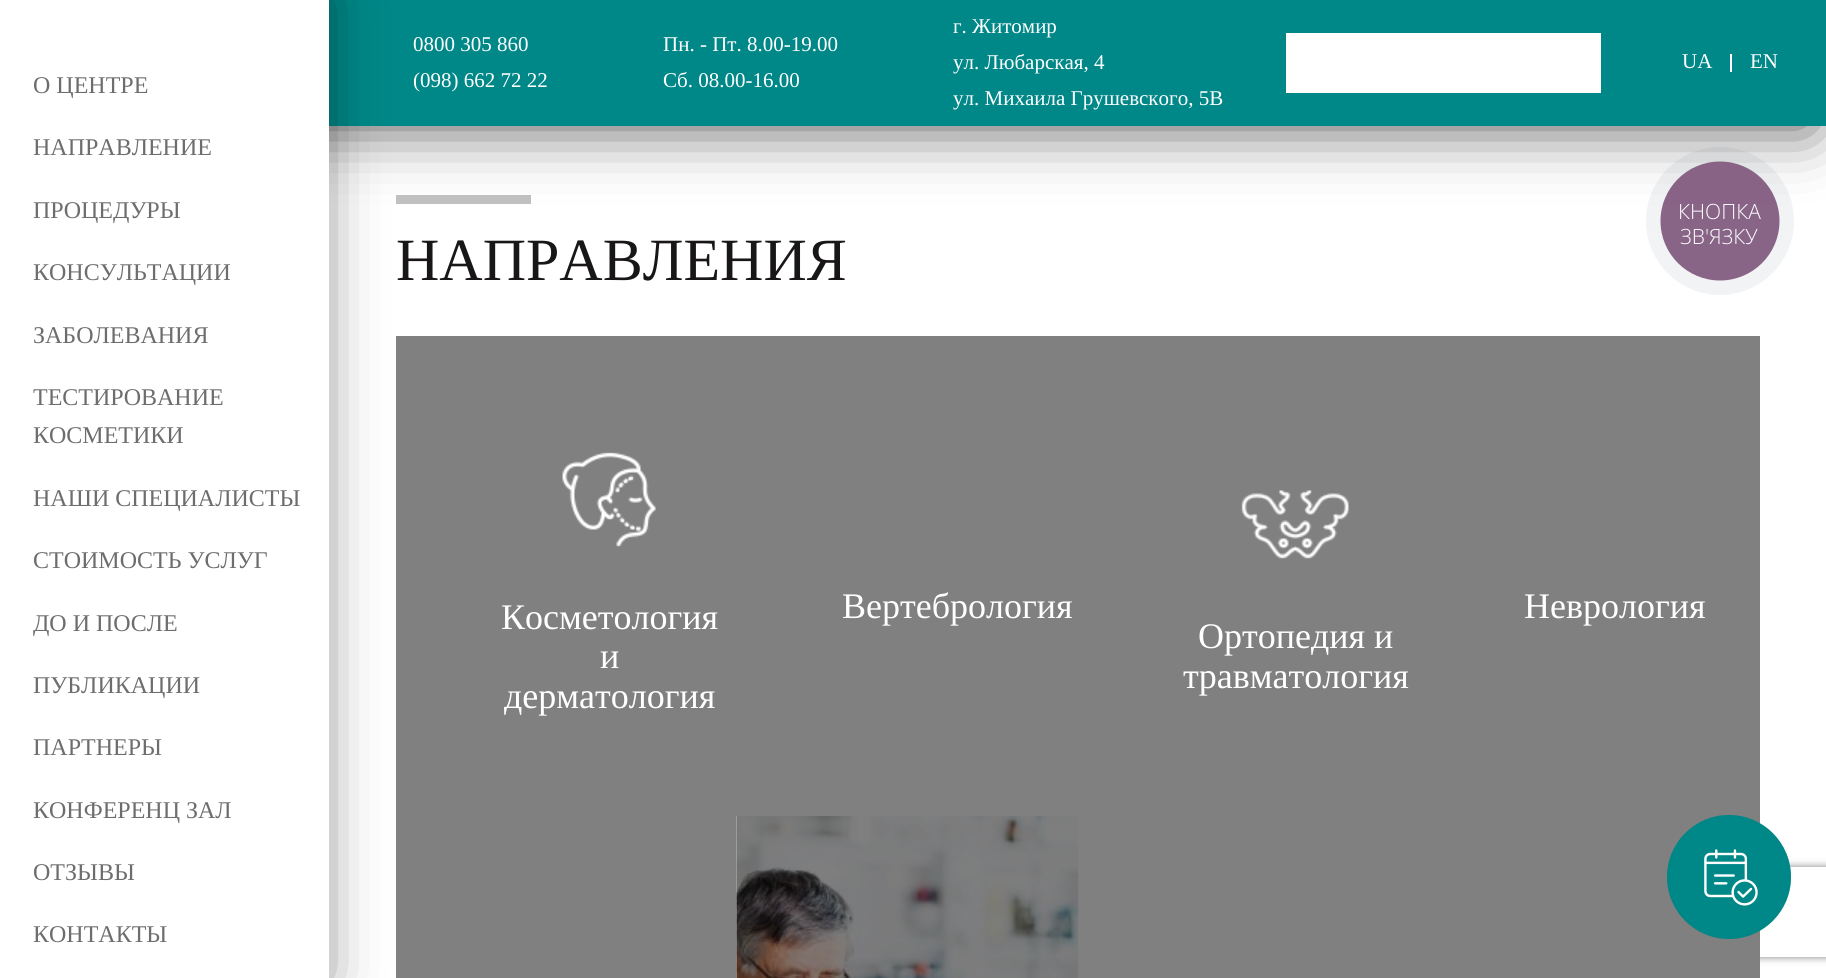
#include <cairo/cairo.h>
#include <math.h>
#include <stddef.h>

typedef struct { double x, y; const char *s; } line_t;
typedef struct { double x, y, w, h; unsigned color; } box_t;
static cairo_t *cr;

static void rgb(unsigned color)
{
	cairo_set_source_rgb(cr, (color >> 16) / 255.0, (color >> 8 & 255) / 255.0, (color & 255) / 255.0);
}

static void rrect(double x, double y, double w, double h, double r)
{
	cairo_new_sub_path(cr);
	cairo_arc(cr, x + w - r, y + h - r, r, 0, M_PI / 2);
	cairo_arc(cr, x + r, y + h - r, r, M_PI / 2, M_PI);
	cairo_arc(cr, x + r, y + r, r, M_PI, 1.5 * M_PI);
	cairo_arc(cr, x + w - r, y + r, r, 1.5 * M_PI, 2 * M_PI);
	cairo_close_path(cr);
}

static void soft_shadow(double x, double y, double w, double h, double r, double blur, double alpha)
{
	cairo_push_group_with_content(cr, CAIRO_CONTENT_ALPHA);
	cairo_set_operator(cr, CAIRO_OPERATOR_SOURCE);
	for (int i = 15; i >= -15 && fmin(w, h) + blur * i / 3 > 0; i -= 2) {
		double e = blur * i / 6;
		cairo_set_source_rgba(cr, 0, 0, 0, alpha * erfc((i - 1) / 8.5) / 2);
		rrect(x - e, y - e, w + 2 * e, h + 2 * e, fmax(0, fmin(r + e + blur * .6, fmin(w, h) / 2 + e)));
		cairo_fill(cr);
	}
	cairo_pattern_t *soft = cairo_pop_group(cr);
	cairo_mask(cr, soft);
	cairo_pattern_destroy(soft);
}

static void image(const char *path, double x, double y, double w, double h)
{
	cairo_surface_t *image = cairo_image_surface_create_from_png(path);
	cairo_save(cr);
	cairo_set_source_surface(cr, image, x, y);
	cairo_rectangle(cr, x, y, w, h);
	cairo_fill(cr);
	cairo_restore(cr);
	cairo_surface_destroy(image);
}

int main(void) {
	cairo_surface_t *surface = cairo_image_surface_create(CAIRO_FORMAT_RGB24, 1826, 978);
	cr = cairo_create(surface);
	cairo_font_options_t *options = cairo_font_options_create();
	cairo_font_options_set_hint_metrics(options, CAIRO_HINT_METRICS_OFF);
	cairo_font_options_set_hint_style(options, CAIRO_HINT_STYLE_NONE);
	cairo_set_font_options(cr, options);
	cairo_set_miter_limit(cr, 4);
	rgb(0xffffff);
	cairo_paint(cr);
	rgb(0x808080);
	cairo_rectangle(cr, 1078, 816, 682, 162);
	cairo_fill(cr);
	rgb(0xc1c1c1);
	cairo_rectangle(cr, 396, 195, 135, 9);
	cairo_fill(cr);
	rgb(0x000000);
	soft_shadow(312, 0, 1499, 126, 0, 31.5, 0.7);
	{
		static const box_t items[] = {
			{329, 0, 1497, 126, 0x008787},
			{396, 336, 1364, 480, 0x808080},
			{396, 816, 341, 162, 0x808080},
		};
		for (size_t i = 0; i < sizeof items / sizeof *items; i++) {
			rgb(items[i].color);
			cairo_rectangle(cr, items[i].x, items[i].y, items[i].w, items[i].h);
			cairo_fill(cr);
		}
	}
	rgb(0x000000);
	soft_shadow(-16, 0, 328, 978, 0, 31.5, 0.7);
	{
		static const box_t items[] = {
			{0, 0, 329, 978, 0xffffff},
			{1286, 33, 315, 60, 0xffffff},
			{1730, 54, 2, 18, 0xffffff},
		};
		for (size_t i = 0; i < sizeof items / sizeof *items; i++) {
			rgb(items[i].color);
			cairo_rectangle(cr, items[i].x, items[i].y, items[i].w, items[i].h);
			cairo_fill(cr);
		}
	}
	image("img/1.png", 562, 452, 94, 95);
	image("img/2.png", 1241, 490, 108, 69);
	image("img/3.png", 736, 816, 343, 162);
	cairo_save(cr);
	cairo_set_fill_rule(cr, CAIRO_FILL_RULE_EVEN_ODD);
	cairo_new_path(cr);
	cairo_move_to(cr, 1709, 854);
	cairo_line_to(cr, 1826, 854);
	cairo_line_to(cr, 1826, 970);
	cairo_line_to(cr, 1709, 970);
	cairo_close_path(cr);
	cairo_move_to(cr, 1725, 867);
	cairo_line_to(cr, 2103, 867);
	cairo_curve_to(cr, 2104.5, 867, 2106, 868.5, 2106, 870);
	cairo_line_to(cr, 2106, 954);
	cairo_curve_to(cr, 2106, 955.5, 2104.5, 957, 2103, 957);
	cairo_line_to(cr, 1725, 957);
	cairo_curve_to(cr, 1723.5, 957, 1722, 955.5, 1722, 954);
	cairo_line_to(cr, 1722, 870);
	cairo_curve_to(cr, 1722, 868.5, 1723.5, 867, 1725, 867);
	cairo_close_path(cr);
	cairo_clip(cr);
	rgb(0x808080);
	soft_shadow(1722, 867, 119, 90, 3, 4, 1);
	cairo_restore(cr);
	rgb(0x008787);
	cairo_arc(cr, 1729, 877, 62, 0, 2 * M_PI);
	cairo_fill(cr);
	image("img/4.png", 1704, 849, 54, 57);
	cairo_arc(cr, 1729, 877, 61, 0, 2 * M_PI);
	cairo_set_source_rgba(cr, 0, 0.529, 0.529, 0.25);
	cairo_stroke(cr);
	cairo_arc(cr, 1729, 877, 61, 0, 2 * M_PI);
	cairo_set_source_rgba(cr, 0, 0.529, 0.529, 0.1);
	cairo_stroke(cr);
	cairo_set_source_rgba(cr, 0.165, 0.251, 0.365, 0.06);
	cairo_arc(cr, 1720, 221, 74, 0, 2 * M_PI);
	cairo_fill(cr);
	cairo_set_source_rgba(cr, 0.518, 0.369, 0.51, 0.96);
	cairo_arc(cr, 1720, 221, 59.5, 0, 2 * M_PI);
	cairo_fill(cr);
	cairo_select_font_face(cr, "Liberation Serif", CAIRO_FONT_SLANT_NORMAL, CAIRO_FONT_WEIGHT_NORMAL);
	cairo_set_font_size(cr, 24);
	rgb(0x6d6d6d);
	{
		static const line_t items[] = {
			{33, 93, "О ЦЕНТРЕ"},
			{33, 155, "НАПРАВЛЕНИЕ"},
			{33, 218, "ПРОЦЕДУРЫ"},
			{33, 280, "КОНСУЛЬТАЦИИ"},
			{33, 343, "ЗАБОЛЕВАНИЯ"},
			{33, 405, "ТЕСТИРОВАНИЕ"},
			{33, 443, "КОСМЕТИКИ"},
			{33, 506, "НАШИ СПЕЦИАЛИСТЫ"},
			{33, 568, "СТОИМОСТЬ УСЛУГ"},
			{33, 631, "ДО И ПОСЛЕ"},
			{33, 693, "ПУБЛИКАЦИИ"},
			{33, 755, "ПАРТНЕРЫ"},
			{33, 818, "КОНФЕРЕНЦ ЗАЛ"},
			{33, 880, "ОТЗЫВЫ"},
			{33, 942, "КОНТАКТЫ"},
		};
		for (size_t i = 0; i < sizeof items / sizeof *items; i++) {
			cairo_move_to(cr, items[i].x, items[i].y);
			cairo_show_text(cr, items[i].s);
		}
	}
	cairo_set_font_size(cr, 21);
	rgb(0xffffff);
	{
		static const line_t items[] = {
			{413, 51, "0800 305 860"},
			{413, 87, "(098) 662 72 22"},
			{663, 51, "Пн. - Пт. 8.00-19.00"},
			{663, 87, "Сб. 08.00-16.00"},
			{953, 33, "г. Житомир"},
			{953, 69, "ул. Любарская, 4"},
			{953, 105, "ул. Михаила Грушевского, 5В"},
			{1682, 68, "UA"},
			{1750, 68, "EN"},
		};
		for (size_t i = 0; i < sizeof items / sizeof *items; i++) {
			cairo_move_to(cr, items[i].x, items[i].y);
			cairo_show_text(cr, items[i].s);
		}
	}
	cairo_set_font_size(cr, 60);
	rgb(0x181616);
	cairo_move_to(cr, 396, 280);
	cairo_show_text(cr, "НАПРАВЛЕНИЯ");
	cairo_set_font_size(cr, 36);
	rgb(0xffffff);
	{
		static const line_t items[] = {
			{501, 629, "Косметология"},
			{600, 668, "и"},
			{504, 708, "дерматология"},
			{842, 618, "Вертебрология"},
			{1198, 648, "Ортопедия и"},
			{1183, 688, "травматология"},
			{1524, 618, "Неврология"},
		};
		for (size_t i = 0; i < sizeof items / sizeof *items; i++) {
			cairo_move_to(cr, items[i].x, items[i].y);
			cairo_show_text(cr, items[i].s);
		}
	}
	cairo_select_font_face(cr, "Open Sans Light", CAIRO_FONT_SLANT_NORMAL, CAIRO_FONT_WEIGHT_NORMAL);
	cairo_set_font_size(cr, 21);
	cairo_move_to(cr, 1678, 219);
	cairo_show_text(cr, "КНОПКА");
	cairo_move_to(cr, 1680, 244);
	cairo_show_text(cr, "ЗВ'ЯЗКУ");
	cairo_surface_write_to_png(surface, "page.png");
	cairo_font_options_destroy(options);
	cairo_destroy(cr);
	cairo_surface_destroy(surface);
	return 0;
}
